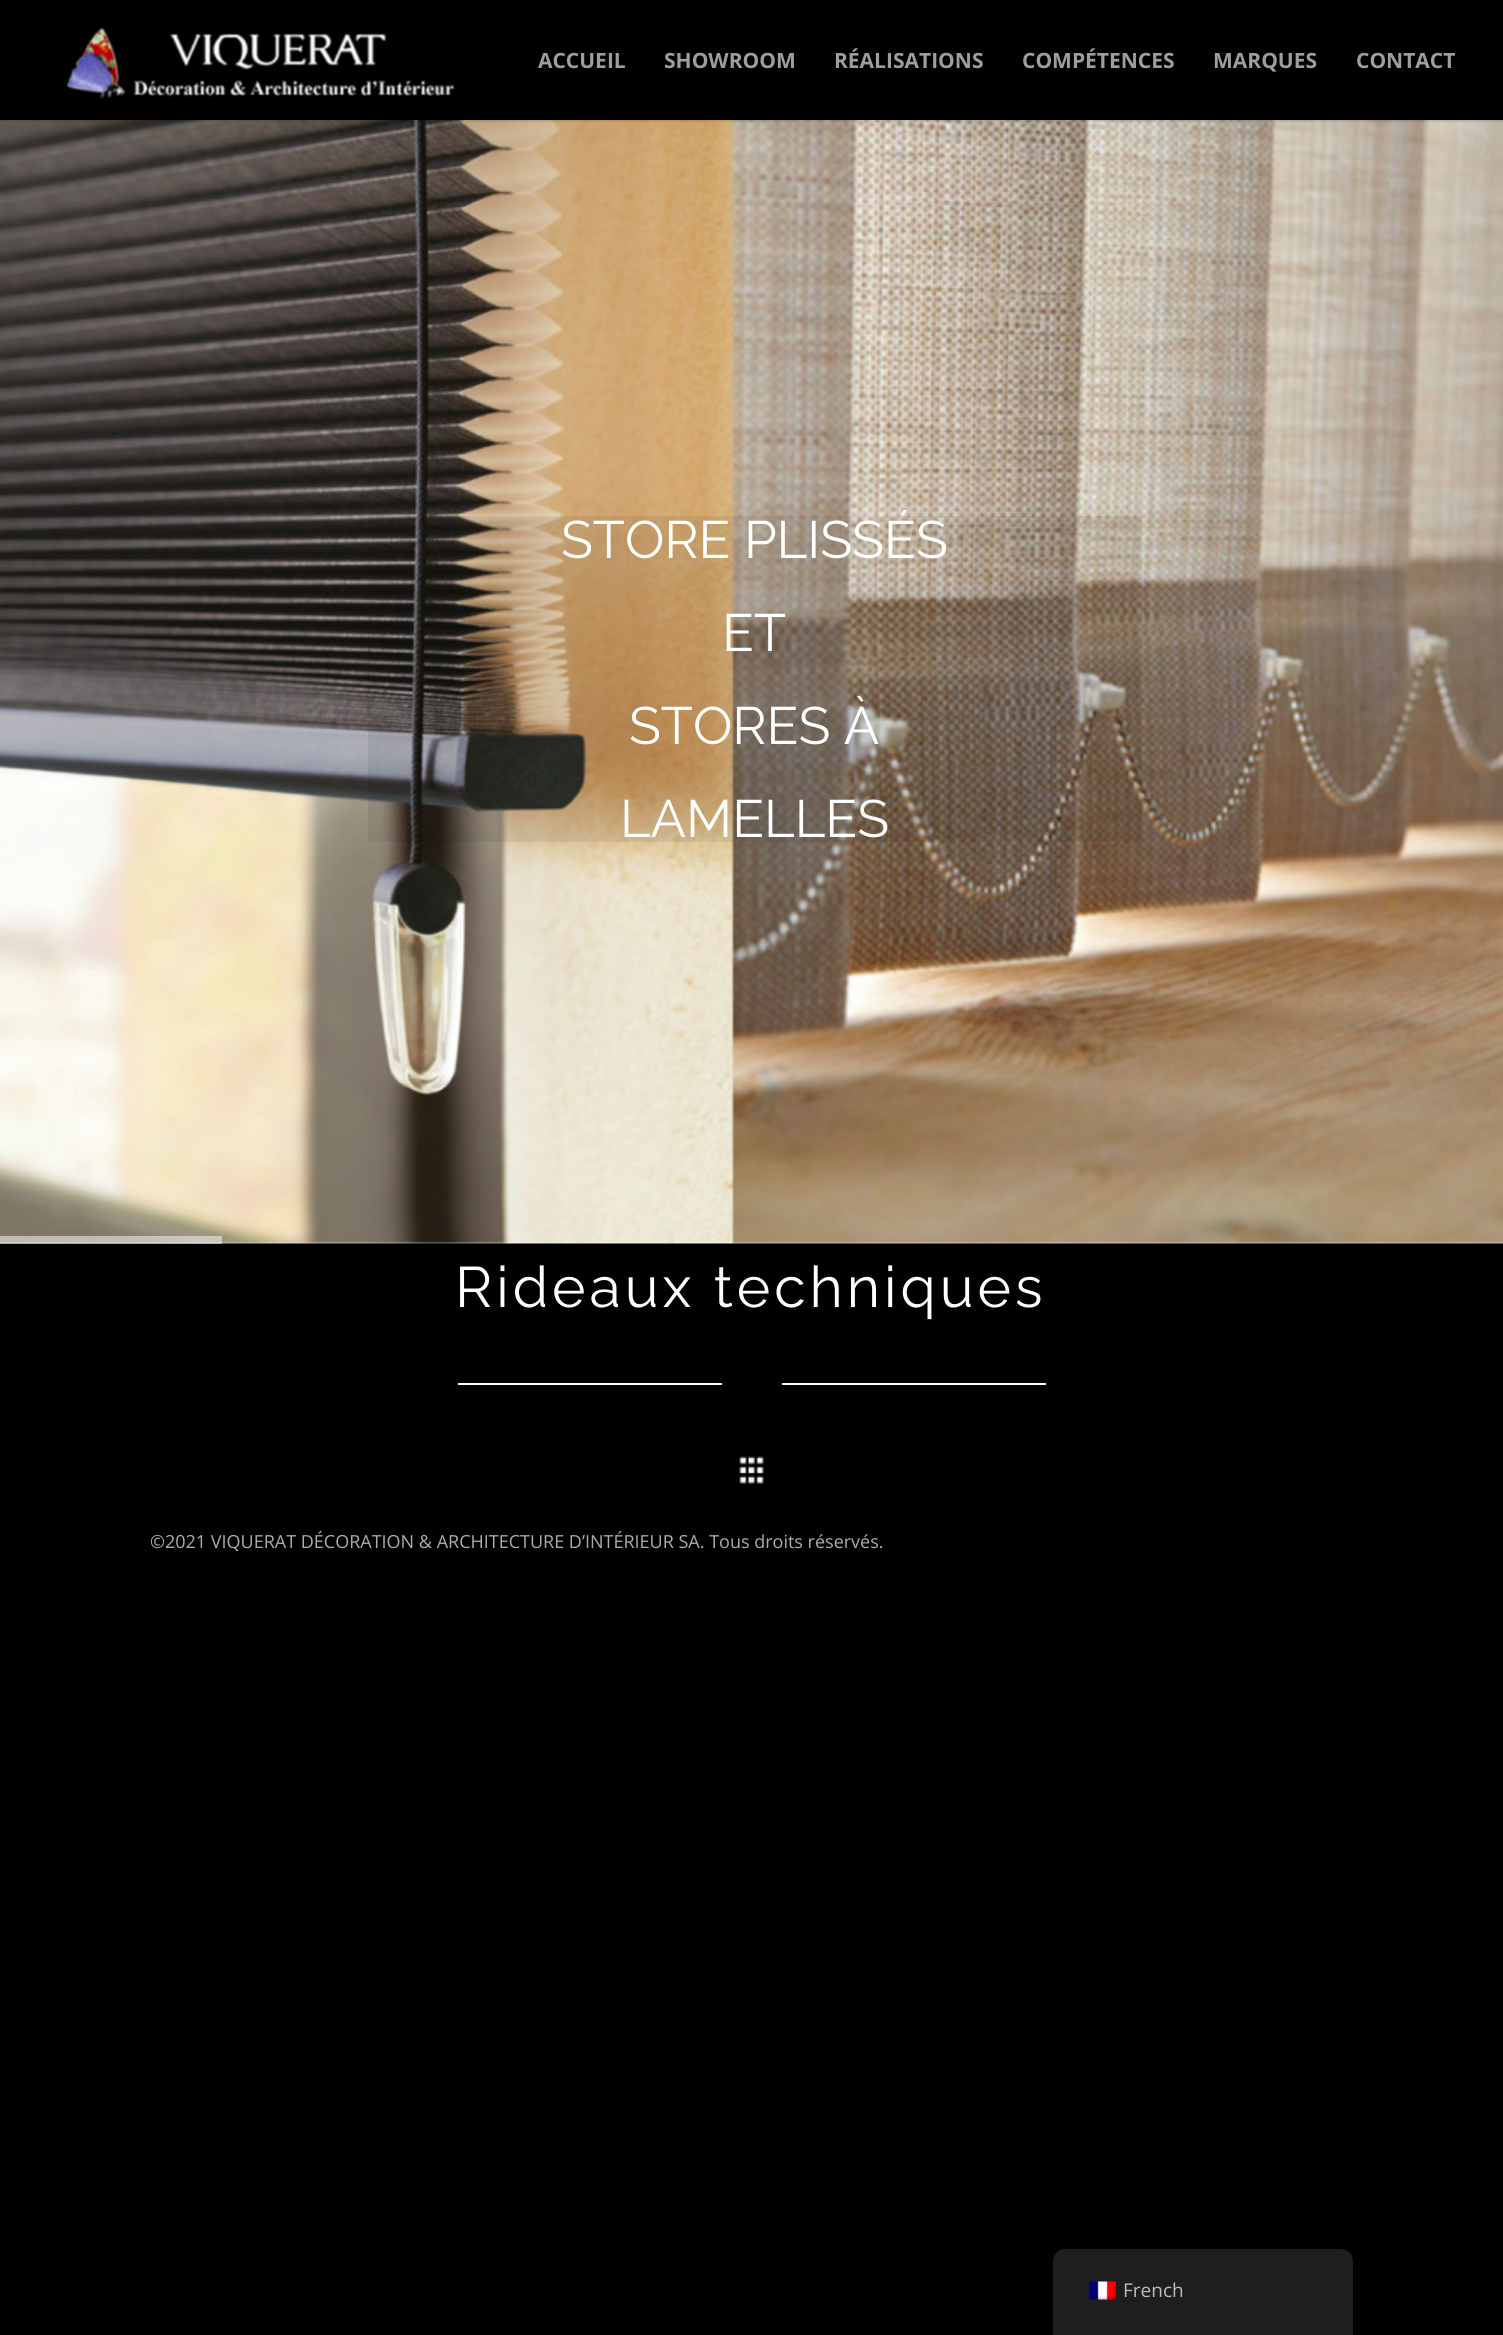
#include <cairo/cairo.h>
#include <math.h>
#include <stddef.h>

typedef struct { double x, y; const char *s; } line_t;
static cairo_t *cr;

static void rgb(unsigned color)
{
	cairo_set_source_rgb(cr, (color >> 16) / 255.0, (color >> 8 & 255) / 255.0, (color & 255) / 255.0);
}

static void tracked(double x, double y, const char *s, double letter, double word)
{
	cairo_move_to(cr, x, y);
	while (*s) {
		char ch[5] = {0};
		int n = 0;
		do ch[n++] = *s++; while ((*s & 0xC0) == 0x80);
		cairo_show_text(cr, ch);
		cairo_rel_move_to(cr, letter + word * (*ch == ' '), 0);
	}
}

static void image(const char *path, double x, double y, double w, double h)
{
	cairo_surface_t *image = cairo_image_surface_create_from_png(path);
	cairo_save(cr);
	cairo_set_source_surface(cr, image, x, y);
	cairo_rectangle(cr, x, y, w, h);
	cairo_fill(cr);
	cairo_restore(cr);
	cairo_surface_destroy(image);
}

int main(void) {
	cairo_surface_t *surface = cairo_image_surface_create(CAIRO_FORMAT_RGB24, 1503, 2335);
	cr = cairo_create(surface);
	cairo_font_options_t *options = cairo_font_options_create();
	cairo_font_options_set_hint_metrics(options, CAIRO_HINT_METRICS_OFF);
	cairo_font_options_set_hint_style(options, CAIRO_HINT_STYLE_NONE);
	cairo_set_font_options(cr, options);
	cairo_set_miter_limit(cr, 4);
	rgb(0x000000);
	cairo_paint(cr);
	image("img/2.png", 0, 120, 1503, 1124);
	cairo_set_source_rgba(cr, 0, 0, 0, 0.1);
	cairo_rectangle(cr, 0, 120, 1503, 2);
	cairo_fill(cr);
	image("img/1.png", 66, 27, 389, 72);
	cairo_set_source_rgba(cr, 0.008, 0.008, 0.008, 0.07);
	cairo_rectangle(cr, 368, 516, 774, 326);
	cairo_fill(cr);
	cairo_set_source_rgba(cr, 1, 1, 1, 0.5);
	cairo_rectangle(cr, 0, 1236, 222, 8);
	cairo_fill(cr);
	rgb(0xffffff);
	cairo_rectangle(cr, 458, 1383, 264, 2);
	cairo_fill(cr);
	cairo_rectangle(cr, 782, 1383, 264, 2);
	cairo_fill(cr);
	image("img/3.png", 739, 1456, 25, 28);
	rgb(0x1e1e1e);
	cairo_new_path(cr);
	cairo_move_to(cr, 1065, 2249);
	cairo_line_to(cr, 1341, 2249);
	cairo_curve_to(cr, 1347.5, 2249, 1353, 2254.5, 1353, 2261);
	cairo_line_to(cr, 1353, 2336);
	cairo_line_to(cr, 1053, 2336);
	cairo_line_to(cr, 1053, 2261);
	cairo_curve_to(cr, 1053, 2254.5, 1058.5, 2249, 1065, 2249);
	cairo_close_path(cr);
	cairo_fill(cr);
	image("img/4.png", 1088, 2281, 28, 19);
	cairo_select_font_face(cr, "Open Sans", CAIRO_FONT_SLANT_NORMAL, CAIRO_FONT_WEIGHT_BOLD);
	cairo_set_font_size(cr, 21);
	rgb(0x9e9e9e);
	{
		static const line_t items[] = {
			{538, 68, "ACCUEIL"},
			{664, 68, "SHOWROOM"},
			{834, 68, "RÉALISATIONS"},
			{1022, 68, "COMPÉTENCES"},
			{1213, 68, "MARQUES"},
			{1356, 68, "CONTACT"},
		};
		for (size_t i = 0; i < sizeof items / sizeof *items; i++) {
			cairo_move_to(cr, items[i].x, items[i].y);
			cairo_show_text(cr, items[i].s);
		}
	}
	cairo_select_font_face(cr, "Raleway Thin", CAIRO_FONT_SLANT_NORMAL, CAIRO_FONT_WEIGHT_NORMAL);
	cairo_set_font_size(cr, 52.5);
	rgb(0xffffff);
	{
		static const line_t items[] = {
			{561, 558, "STORE PLISSÉS"},
			{722, 651, "ET"},
			{629, 744, "STORES À"},
			{620, 837, "LAMELLES"},
		};
		for (size_t i = 0; i < sizeof items / sizeof *items; i++) {
			cairo_move_to(cr, items[i].x, items[i].y);
			cairo_show_text(cr, items[i].s);
		}
	}
	cairo_set_font_size(cr, 57);
	tracked(455, 1307, "Rideaux techniques", 4, 0);
	cairo_select_font_face(cr, "Open Sans", CAIRO_FONT_SLANT_NORMAL, CAIRO_FONT_WEIGHT_NORMAL);
	cairo_set_font_size(cr, 18);
	rgb(0xadadad);
	cairo_move_to(cr, 150, 1548);
	cairo_show_text(cr, "©2021 VIQUERAT DÉCORATION & ARCHITECTURE D’INTÉRIEUR SA. Tous droits réservés.");
	cairo_set_font_size(cr, 19);
	rgb(0xbdbdbd);
	cairo_move_to(cr, 1123, 2297);
	cairo_show_text(cr, "French");
	cairo_surface_write_to_png(surface, "page.png");
	cairo_font_options_destroy(options);
	cairo_destroy(cr);
	cairo_surface_destroy(surface);
	return 0;
}
